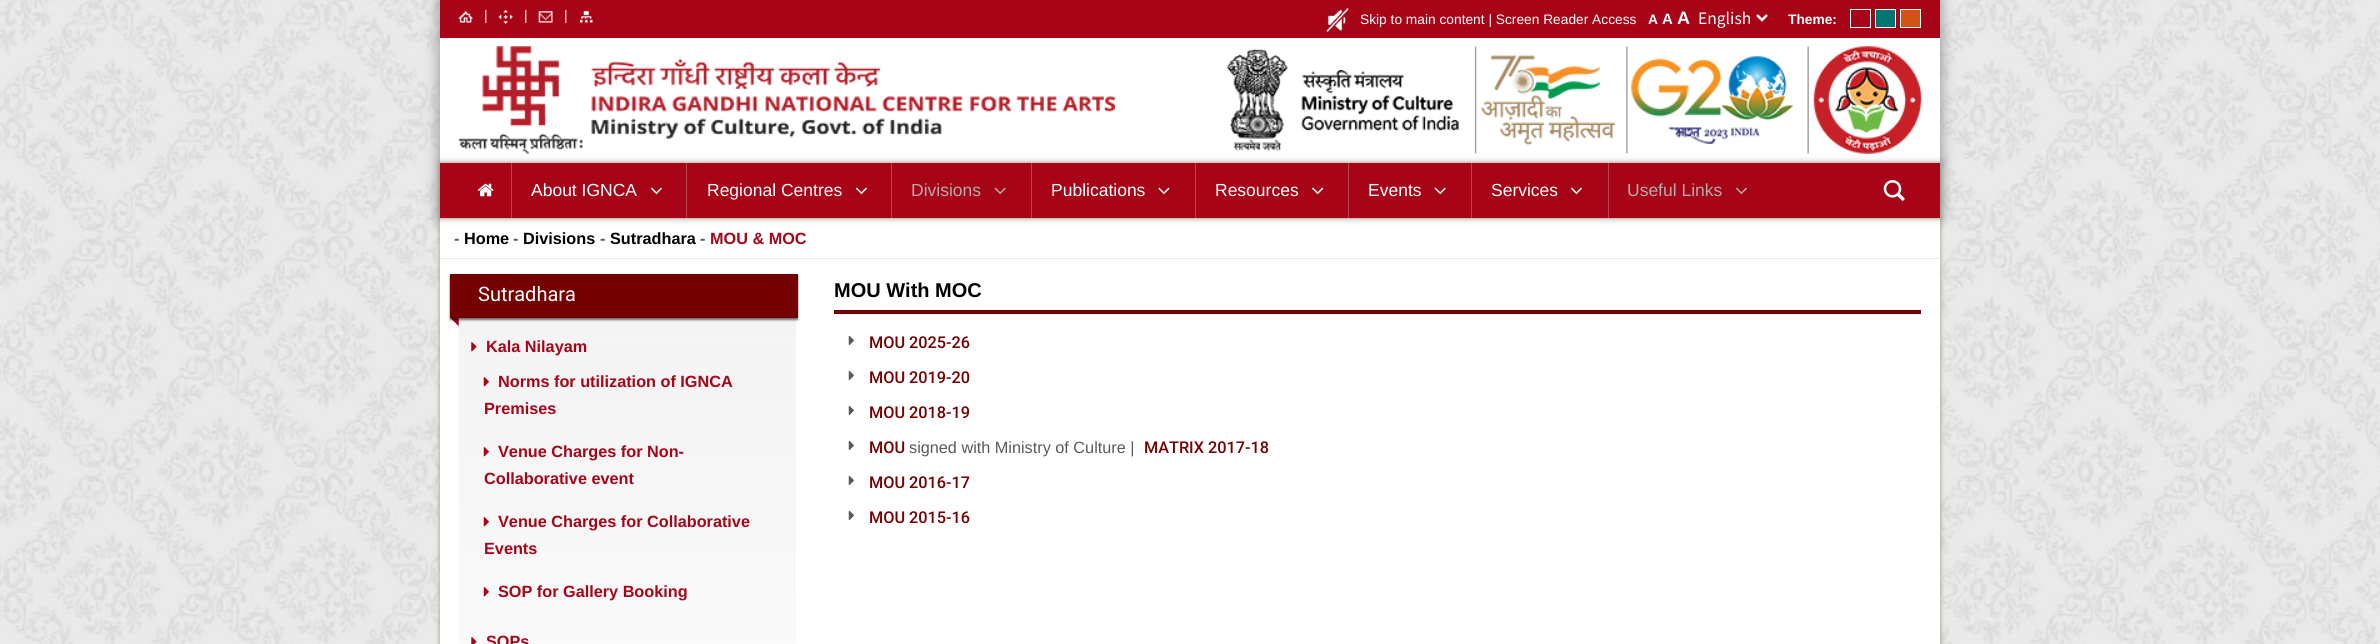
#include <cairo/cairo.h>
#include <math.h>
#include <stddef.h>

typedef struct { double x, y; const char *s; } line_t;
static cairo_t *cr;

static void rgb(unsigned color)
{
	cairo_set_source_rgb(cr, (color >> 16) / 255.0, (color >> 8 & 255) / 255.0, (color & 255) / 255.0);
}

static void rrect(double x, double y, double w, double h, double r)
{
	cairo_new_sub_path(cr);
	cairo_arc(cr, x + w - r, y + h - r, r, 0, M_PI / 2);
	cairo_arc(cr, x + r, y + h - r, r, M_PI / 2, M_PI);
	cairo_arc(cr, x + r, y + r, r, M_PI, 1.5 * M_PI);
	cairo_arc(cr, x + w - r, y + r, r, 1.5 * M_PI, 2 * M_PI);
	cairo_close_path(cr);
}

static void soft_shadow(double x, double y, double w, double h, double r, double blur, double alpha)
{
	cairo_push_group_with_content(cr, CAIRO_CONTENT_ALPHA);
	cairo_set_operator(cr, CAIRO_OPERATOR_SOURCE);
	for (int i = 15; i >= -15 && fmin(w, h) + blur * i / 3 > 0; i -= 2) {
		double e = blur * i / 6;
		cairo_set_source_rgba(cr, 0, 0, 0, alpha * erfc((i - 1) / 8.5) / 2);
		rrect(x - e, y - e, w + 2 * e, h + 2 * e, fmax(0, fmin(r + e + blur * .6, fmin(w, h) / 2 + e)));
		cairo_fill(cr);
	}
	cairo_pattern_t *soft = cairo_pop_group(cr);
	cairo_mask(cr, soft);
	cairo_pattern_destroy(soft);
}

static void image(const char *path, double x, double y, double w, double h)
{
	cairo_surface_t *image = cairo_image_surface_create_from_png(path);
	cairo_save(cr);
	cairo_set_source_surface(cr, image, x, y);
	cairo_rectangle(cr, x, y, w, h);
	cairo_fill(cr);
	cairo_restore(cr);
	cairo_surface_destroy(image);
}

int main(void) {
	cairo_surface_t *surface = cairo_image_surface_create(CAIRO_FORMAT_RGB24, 2380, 644);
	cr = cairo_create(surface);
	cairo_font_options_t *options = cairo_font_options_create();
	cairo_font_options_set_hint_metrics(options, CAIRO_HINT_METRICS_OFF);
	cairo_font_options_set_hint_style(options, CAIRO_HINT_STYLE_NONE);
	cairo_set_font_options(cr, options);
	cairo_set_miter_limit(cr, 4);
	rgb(0xffffff);
	cairo_paint(cr);
	image("img/1.png", 0, 0, 2380, 644);
	rgb(0x8c8c8c);
	soft_shadow(440, 0, 1500, 218, 0, 7.5, 1);
	rgb(0xa70417);
	cairo_rectangle(cr, 440, 0, 1500, 38);
	cairo_fill(cr);
	image("img/2.png", 458, 11, 15, 12);
	image("img/3.png", 498, 10, 15, 14);
	image("img/4.png", 538, 11, 15, 12);
	image("img/5.png", 580, 11, 13, 12);
	image("img/6.png", 1326, 7, 23, 26);
	cairo_new_path(cr);
	cairo_move_to(cr, 1757, 15);
	cairo_line_to(cr, 1762, 20);
	cairo_line_to(cr, 1767, 15);
	rgb(0xffffff);
	cairo_set_line_width(cr, 2.5);
	cairo_stroke(cr);
	cairo_rectangle(cr, 1850.5, 9.5, 20, 18);
	cairo_set_line_width(cr, 1);
	cairo_stroke(cr);
	rgb(0x007571);
	cairo_rectangle(cr, 1875.5, 9.5, 20, 18);
	cairo_fill_preserve(cr);
	rgb(0xffffff);
	cairo_stroke(cr);
	rgb(0xd25414);
	cairo_rectangle(cr, 1900.5, 9.5, 20, 18);
	cairo_fill_preserve(cr);
	rgb(0xffffff);
	cairo_stroke(cr);
	cairo_rectangle(cr, 440, 38, 1500, 125);
	cairo_fill(cr);
	image("img/7.png", 458, 46, 657, 108);
	image("img/8.png", 1227, 46, 250, 108);
	image("img/9.png", 1481, 46, 147, 108);
	image("img/10.png", 1631, 46, 178, 108);
	image("img/11.png", 1813, 46, 109, 108);
	rgb(0x9f9378);
	soft_shadow(440, 218, 1500, 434, 0, 2.5, 1);
	rgb(0xffffff);
	cairo_rectangle(cr, 440, 218, 1500, 426);
	cairo_fill(cr);
	rgb(0x9f9378);
	soft_shadow(440, 163, 1500, 55, 0, 2.5, 1);
	rgb(0x000000);
	soft_shadow(440, 163, 1500, 55, 0, 6, 0.1);
	rgb(0xa70417);
	cairo_rectangle(cr, 440, 163, 1500, 55);
	cairo_fill(cr);
	image("img/12.png", 477, 183, 17, 14);
	rgb(0xbd4351);
	cairo_rectangle(cr, 511, 163, 1, 55);
	cairo_fill(cr);
	image("img/13.png", 650, 187, 12, 8);
	cairo_rectangle(cr, 686, 163, 1, 55);
	cairo_fill(cr);
	image("img/13.png", 855, 187, 12, 8);
	cairo_rectangle(cr, 891, 163, 1, 55);
	cairo_fill(cr);
	image("img/14.png", 994, 187, 12, 8);
	cairo_rectangle(cr, 1031, 163, 1, 55);
	cairo_fill(cr);
	image("img/15.png", 1158, 187, 12, 8);
	cairo_rectangle(cr, 1195, 163, 1, 55);
	cairo_fill(cr);
	image("img/16.png", 1312, 187, 12, 8);
	cairo_rectangle(cr, 1348, 163, 1, 55);
	cairo_fill(cr);
	image("img/17.png", 1434, 187, 12, 8);
	cairo_rectangle(cr, 1471, 163, 1, 55);
	cairo_fill(cr);
	image("img/13.png", 1570, 187, 12, 8);
	cairo_rectangle(cr, 1608, 163, 1, 55);
	cairo_fill(cr);
	image("img/18.png", 1735, 187, 12, 8);
	image("img/19.png", 1883, 180, 22, 21);
	rgb(0xe9e9e9);
	cairo_rectangle(cr, 440, 258, 1500, 1);
	cairo_fill(cr);
	rgb(0xa70417);
	cairo_new_path(cr);
	cairo_move_to(cr, 460, 307.5);
	cairo_line_to(cr, 460, 327.5);
	cairo_line_to(cr, 450, 317.5);
	cairo_close_path(cr);
	cairo_fill(cr);
	image("img/20.png", 458, 318, 338, 326);
	rgb(0x000000);
	soft_shadow(450, 276, 348, 44, 0, 1, 0.55);
	rgb(0x750000);
	cairo_rectangle(cr, 450, 274, 348, 44);
	cairo_fill(cr);
	image("img/21.png", 471, 342, 6, 10);
	image("img/22.png", 483, 377, 6, 10);
	image("img/23.png", 483, 447, 6, 10);
	image("img/24.png", 483, 517, 6, 10);
	image("img/25.png", 483, 587, 6, 10);
	image("img/26.png", 471, 637, 6, 7);
	cairo_rectangle(cr, 834, 310, 1087, 4);
	cairo_fill(cr);
	image("img/27.png", 848, 335, 6, 10);
	image("img/27.png", 848, 370, 6, 10);
	image("img/27.png", 848, 405, 6, 10);
	image("img/27.png", 848, 440, 6, 10);
	image("img/27.png", 848, 475, 6, 10);
	image("img/27.png", 848, 510, 6, 10);
	cairo_select_font_face(cr, "Liberation Sans", CAIRO_FONT_SLANT_NORMAL, CAIRO_FONT_WEIGHT_NORMAL);
	cairo_set_font_size(cr, 13.75);
	rgb(0xffffff);
	{
		static const line_t items[] = {
			{484, 20, "|"},
			{524, 20, "|"},
			{564, 20, "|"},
			{1360, 24, "Skip to main content | Screen Reader Access"},
		};
		for (size_t i = 0; i < sizeof items / sizeof *items; i++) {
			cairo_move_to(cr, items[i].x, items[i].y);
			cairo_show_text(cr, items[i].s);
		}
	}
	cairo_select_font_face(cr, "Liberation Sans", CAIRO_FONT_SLANT_NORMAL, CAIRO_FONT_WEIGHT_BOLD);
	cairo_move_to(cr, 1648, 24);
	cairo_show_text(cr, "A");
	cairo_set_font_size(cr, 15);
	cairo_move_to(cr, 1662, 24);
	cairo_show_text(cr, "A");
	cairo_set_font_size(cr, 18);
	cairo_move_to(cr, 1677, 24);
	cairo_show_text(cr, "A");
	cairo_select_font_face(cr, "Source Sans Pro", CAIRO_FONT_SLANT_NORMAL, CAIRO_FONT_WEIGHT_NORMAL);
	cairo_set_font_size(cr, 17.5);
	cairo_move_to(cr, 1698, 24);
	cairo_show_text(cr, "English");
	cairo_select_font_face(cr, "Liberation Sans", CAIRO_FONT_SLANT_NORMAL, CAIRO_FONT_WEIGHT_BOLD);
	cairo_set_font_size(cr, 13.75);
	cairo_move_to(cr, 1788, 24);
	cairo_show_text(cr, "Theme:");
	cairo_select_font_face(cr, "Liberation Sans", CAIRO_FONT_SLANT_NORMAL, CAIRO_FONT_WEIGHT_NORMAL);
	cairo_set_font_size(cr, 17.5);
	cairo_move_to(cr, 531, 196);
	cairo_show_text(cr, "About IGNCA");
	cairo_move_to(cr, 707, 196);
	cairo_show_text(cr, "Regional Centres");
	rgb(0xb6adaa);
	cairo_move_to(cr, 911, 196);
	cairo_show_text(cr, "Divisions");
	rgb(0xffffff);
	{
		static const line_t items[] = {
			{1051, 196, "Publications"},
			{1215, 196, "Resources"},
			{1368, 196, "Events"},
			{1491, 196, "Services"},
		};
		for (size_t i = 0; i < sizeof items / sizeof *items; i++) {
			cairo_move_to(cr, items[i].x, items[i].y);
			cairo_show_text(cr, items[i].s);
		}
	}
	rgb(0xb6adaa);
	cairo_move_to(cr, 1627, 196);
	cairo_show_text(cr, "Useful Links");
	cairo_select_font_face(cr, "Liberation Sans", CAIRO_FONT_SLANT_NORMAL, CAIRO_FONT_WEIGHT_BOLD);
	cairo_set_font_size(cr, 16.25);
	rgb(0x5a5a5a);
	cairo_move_to(cr, 454, 244);
	cairo_show_text(cr, "-");
	rgb(0x000000);
	cairo_move_to(cr, 464, 244);
	cairo_show_text(cr, "Home");
	rgb(0x5a5a5a);
	cairo_move_to(cr, 513, 244);
	cairo_show_text(cr, "-");
	rgb(0x000000);
	cairo_move_to(cr, 523, 244);
	cairo_show_text(cr, "Divisions");
	rgb(0x5a5a5a);
	cairo_move_to(cr, 600, 244);
	cairo_show_text(cr, "-");
	rgb(0x000000);
	cairo_move_to(cr, 610, 244);
	cairo_show_text(cr, "Sutradhara");
	rgb(0x5a5a5a);
	cairo_move_to(cr, 700, 244);
	cairo_show_text(cr, "-");
	rgb(0xa70417);
	cairo_move_to(cr, 710, 244);
	cairo_show_text(cr, "MOU & MOC");
	cairo_select_font_face(cr, "Roboto", CAIRO_FONT_SLANT_NORMAL, CAIRO_FONT_WEIGHT_NORMAL);
	cairo_set_font_size(cr, 20);
	rgb(0xffffff);
	cairo_move_to(cr, 478, 301);
	cairo_show_text(cr, "Sutradhara");
	cairo_select_font_face(cr, "Liberation Sans", CAIRO_FONT_SLANT_NORMAL, CAIRO_FONT_WEIGHT_BOLD);
	cairo_set_font_size(cr, 16.25);
	rgb(0xa70417);
	{
		static const line_t items[] = {
			{486, 352, "Kala Nilayam"},
			{498, 387, "Norms for utilization of IGNCA"},
			{484, 414, "Premises"},
			{498, 457, "Venue Charges for Non-"},
			{484, 484, "Collaborative event"},
			{498, 527, "Venue Charges for Collaborative"},
			{484, 554, "Events"},
			{498, 597, "SOP for Gallery Booking"},
			{486, 647, "SOPs"},
		};
		for (size_t i = 0; i < sizeof items / sizeof *items; i++) {
			cairo_move_to(cr, items[i].x, items[i].y);
			cairo_show_text(cr, items[i].s);
		}
	}
	cairo_set_font_size(cr, 20);
	rgb(0x000000);
	cairo_move_to(cr, 834, 297);
	cairo_show_text(cr, "MOU With MOC");
	cairo_select_font_face(cr, "Roboto Medium", CAIRO_FONT_SLANT_NORMAL, CAIRO_FONT_WEIGHT_NORMAL);
	cairo_set_font_size(cr, 16.25);
	rgb(0x750000);
	{
		static const line_t items[] = {
			{869, 348, "MOU 2025-26"},
			{869, 383, "MOU 2019-20"},
			{869, 418, "MOU 2018-19"},
			{869, 453, "MOU"},
		};
		for (size_t i = 0; i < sizeof items / sizeof *items; i++) {
			cairo_move_to(cr, items[i].x, items[i].y);
			cairo_show_text(cr, items[i].s);
		}
	}
	cairo_select_font_face(cr, "Liberation Sans", CAIRO_FONT_SLANT_NORMAL, CAIRO_FONT_WEIGHT_NORMAL);
	rgb(0x5a5a5a);
	cairo_move_to(cr, 909, 453);
	cairo_show_text(cr, "signed with Ministry of Culture |");
	cairo_select_font_face(cr, "Roboto Medium", CAIRO_FONT_SLANT_NORMAL, CAIRO_FONT_WEIGHT_NORMAL);
	rgb(0x750000);
	{
		static const line_t items[] = {
			{1144, 453, "MATRIX 2017-18"},
			{869, 488, "MOU 2016-17"},
			{869, 523, "MOU 2015-16"},
		};
		for (size_t i = 0; i < sizeof items / sizeof *items; i++) {
			cairo_move_to(cr, items[i].x, items[i].y);
			cairo_show_text(cr, items[i].s);
		}
	}
	cairo_surface_write_to_png(surface, "page.png");
	cairo_font_options_destroy(options);
	cairo_destroy(cr);
	cairo_surface_destroy(surface);
	return 0;
}
